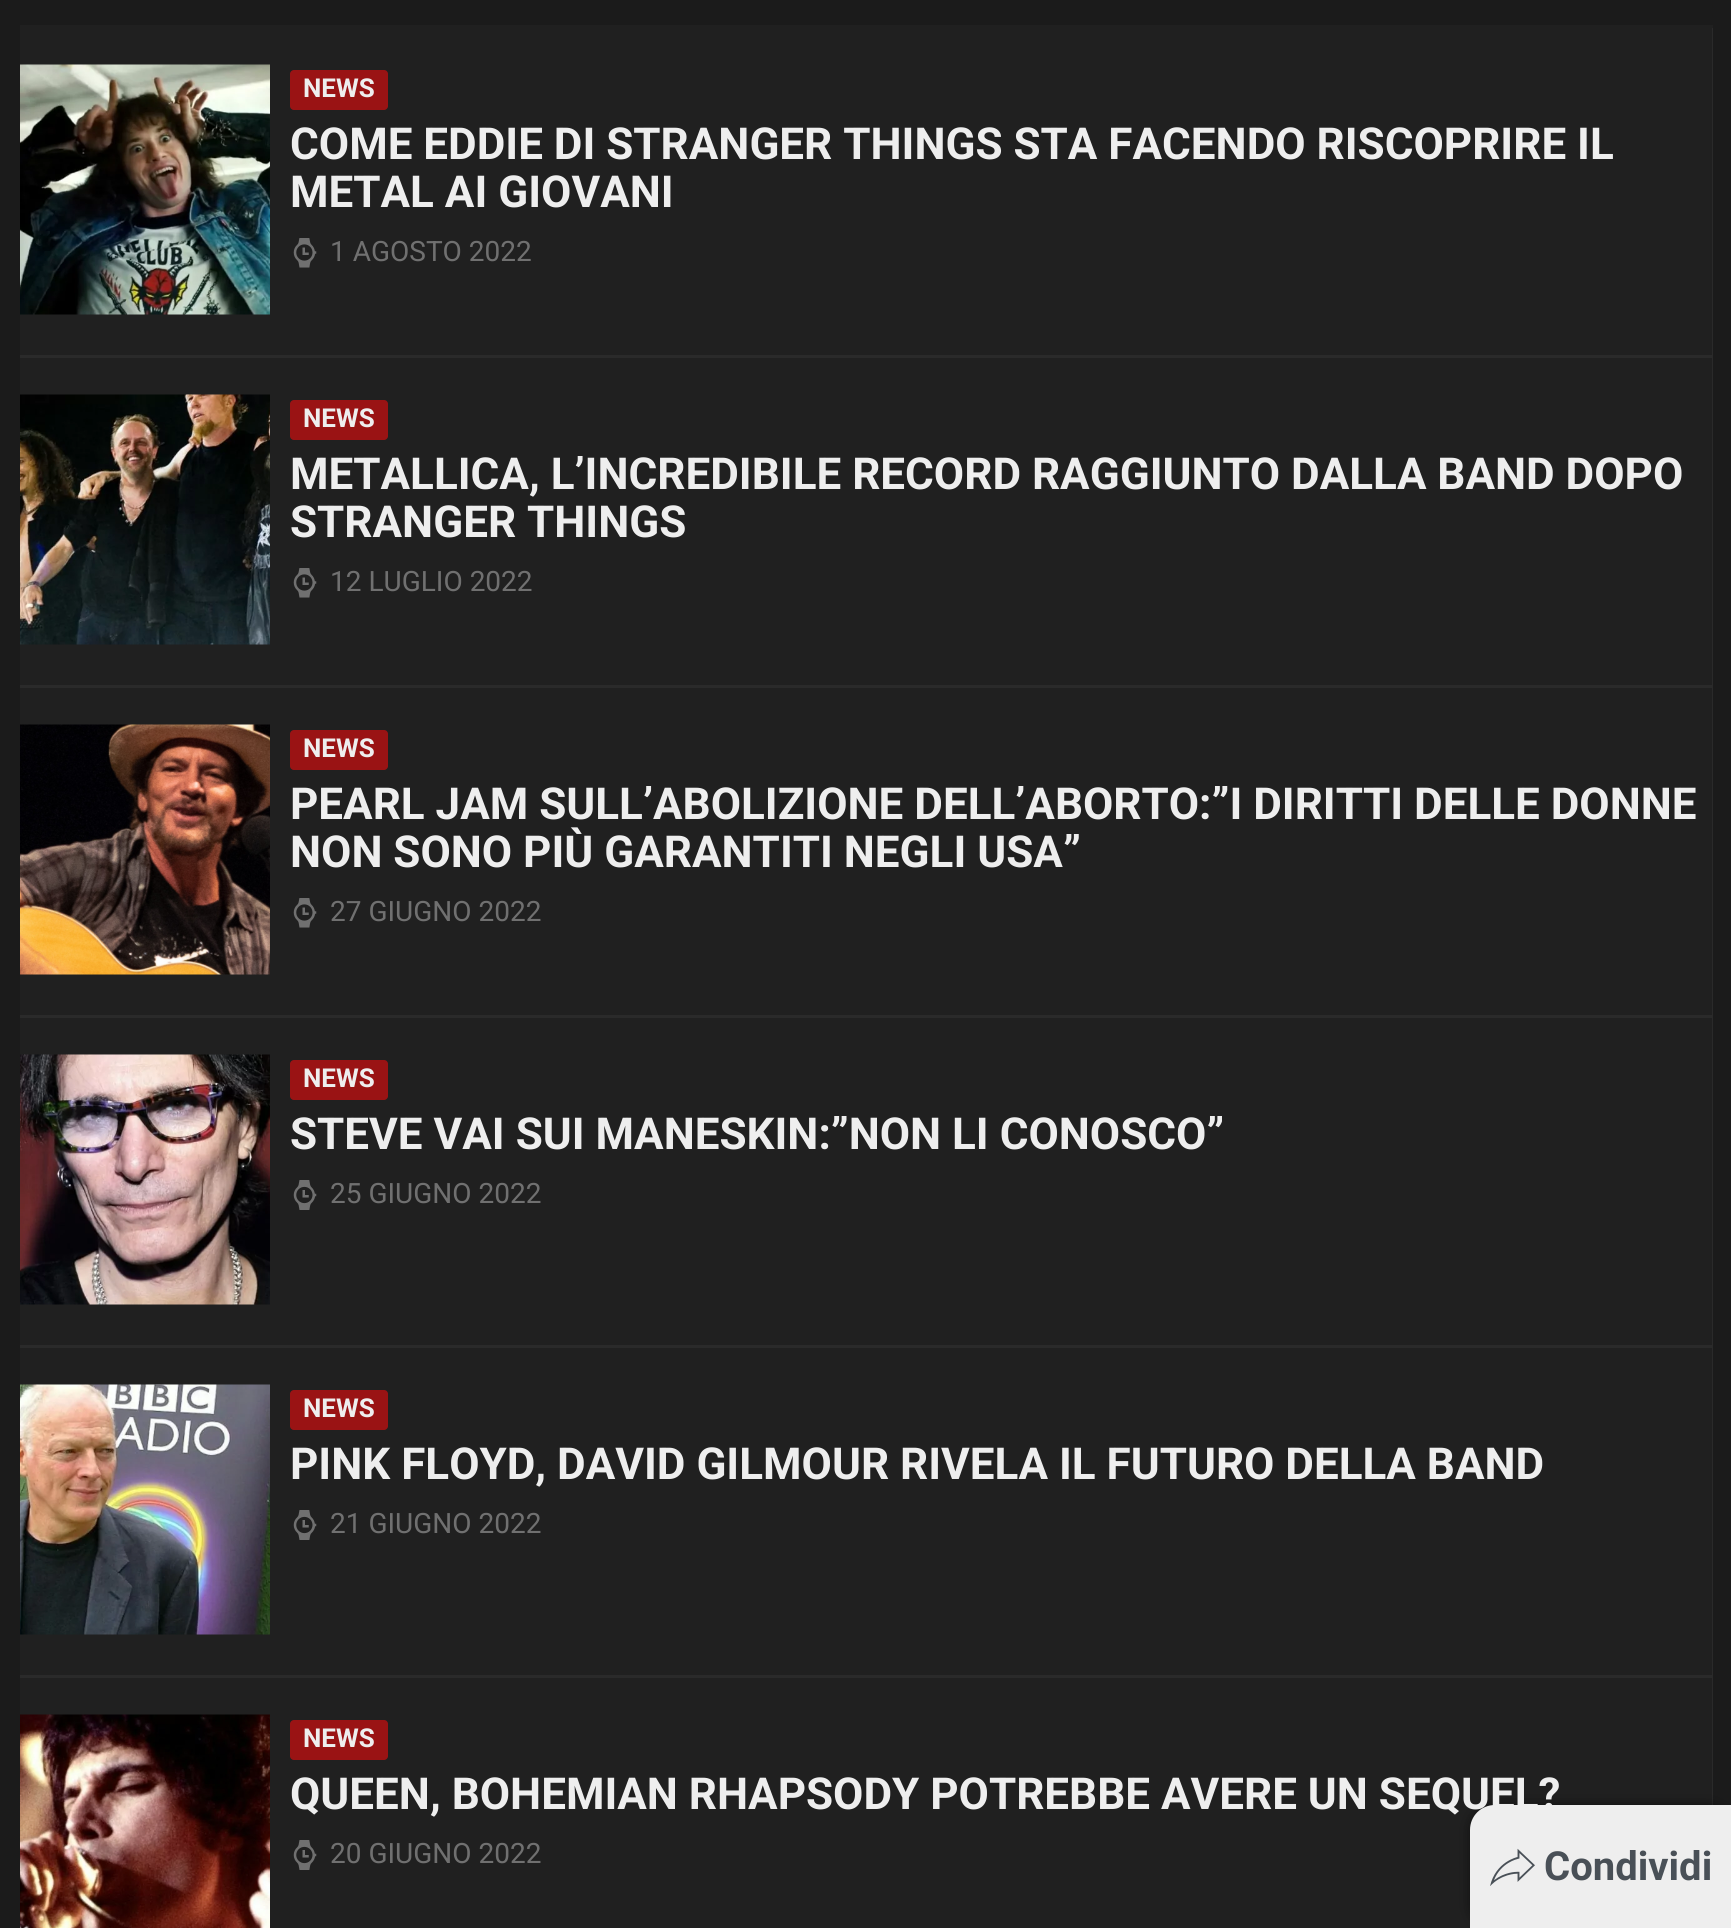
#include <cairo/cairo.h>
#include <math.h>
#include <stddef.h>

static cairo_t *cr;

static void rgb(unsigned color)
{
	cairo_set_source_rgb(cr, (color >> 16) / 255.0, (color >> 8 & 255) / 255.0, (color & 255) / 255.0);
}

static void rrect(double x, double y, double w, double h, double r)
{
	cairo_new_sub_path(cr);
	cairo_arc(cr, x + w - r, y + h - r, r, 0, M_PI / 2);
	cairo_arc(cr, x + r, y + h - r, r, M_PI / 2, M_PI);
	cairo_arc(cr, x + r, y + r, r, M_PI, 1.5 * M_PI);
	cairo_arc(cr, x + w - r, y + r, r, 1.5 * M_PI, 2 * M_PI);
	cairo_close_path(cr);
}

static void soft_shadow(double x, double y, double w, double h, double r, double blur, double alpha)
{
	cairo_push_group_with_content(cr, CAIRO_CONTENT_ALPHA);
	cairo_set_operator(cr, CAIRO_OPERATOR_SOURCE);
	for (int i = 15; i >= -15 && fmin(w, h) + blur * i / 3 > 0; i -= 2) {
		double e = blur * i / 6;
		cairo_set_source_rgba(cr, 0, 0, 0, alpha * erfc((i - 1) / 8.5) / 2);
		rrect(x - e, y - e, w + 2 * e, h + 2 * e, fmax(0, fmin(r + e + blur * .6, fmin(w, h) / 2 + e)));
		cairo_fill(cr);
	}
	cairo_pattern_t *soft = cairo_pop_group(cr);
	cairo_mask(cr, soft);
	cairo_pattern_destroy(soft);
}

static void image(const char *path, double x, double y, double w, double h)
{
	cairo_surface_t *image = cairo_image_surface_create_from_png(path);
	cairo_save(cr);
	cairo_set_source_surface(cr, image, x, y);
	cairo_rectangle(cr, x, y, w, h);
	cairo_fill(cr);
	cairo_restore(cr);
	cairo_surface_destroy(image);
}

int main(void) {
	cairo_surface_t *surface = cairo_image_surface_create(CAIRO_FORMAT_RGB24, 1731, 1928);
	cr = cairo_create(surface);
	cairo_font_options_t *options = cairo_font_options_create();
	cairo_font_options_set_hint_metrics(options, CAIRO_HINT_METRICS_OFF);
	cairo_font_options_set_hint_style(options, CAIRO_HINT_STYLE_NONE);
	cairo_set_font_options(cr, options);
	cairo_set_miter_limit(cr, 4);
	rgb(0x1b1b1b);
	cairo_paint(cr);
	rgb(0x3d3d3d);
	cairo_new_path(cr);
	cairo_move_to(cr, 20, 355);
	cairo_line_to(cr, 20, 358);
	cairo_line_to(cr, 1713, 358);
	cairo_line_to(cr, 1713, 28);
	cairo_line_to(cr, 1712, 28);
	cairo_line_to(cr, 1712, 355);
	cairo_close_path(cr);
	cairo_fill(cr);
	cairo_set_source_rgba(cr, 0.137, 0.137, 0.137, 0.7);
	cairo_rectangle(cr, 20, 25, 1693, 330);
	cairo_fill(cr);
	image("img/1.png", 20, 64, 250, 251);
	rgb(0x9a1314);
	rrect(290, 70, 98, 40, 4);
	cairo_fill(cr);
	image("img/2.png", 293, 238, 24, 30);
	rgb(0x3d3d3d);
	cairo_new_path(cr);
	cairo_move_to(cr, 20, 685);
	cairo_line_to(cr, 20, 688);
	cairo_line_to(cr, 1713, 688);
	cairo_line_to(cr, 1713, 358);
	cairo_line_to(cr, 1712, 358);
	cairo_line_to(cr, 1712, 685);
	cairo_close_path(cr);
	cairo_fill(cr);
	cairo_set_source_rgba(cr, 0.137, 0.137, 0.137, 0.7);
	cairo_rectangle(cr, 20, 355, 1693, 330);
	cairo_fill(cr);
	image("img/3.png", 20, 394, 250, 251);
	rgb(0x9a1314);
	rrect(290, 400, 98, 40, 4);
	cairo_fill(cr);
	image("img/2.png", 293, 568, 24, 30);
	rgb(0x3d3d3d);
	cairo_new_path(cr);
	cairo_move_to(cr, 20, 1015);
	cairo_line_to(cr, 20, 1018);
	cairo_line_to(cr, 1713, 1018);
	cairo_line_to(cr, 1713, 688);
	cairo_line_to(cr, 1712, 688);
	cairo_line_to(cr, 1712, 1015);
	cairo_close_path(cr);
	cairo_fill(cr);
	cairo_set_source_rgba(cr, 0.137, 0.137, 0.137, 0.7);
	cairo_rectangle(cr, 20, 685, 1693, 330);
	cairo_fill(cr);
	image("img/4.png", 20, 724, 250, 251);
	rgb(0x9a1314);
	rrect(290, 730, 98, 40, 4);
	cairo_fill(cr);
	image("img/2.png", 293, 898, 24, 30);
	rgb(0x3d3d3d);
	cairo_new_path(cr);
	cairo_move_to(cr, 20, 1345);
	cairo_line_to(cr, 20, 1348);
	cairo_line_to(cr, 1713, 1348);
	cairo_line_to(cr, 1713, 1018);
	cairo_line_to(cr, 1712, 1018);
	cairo_line_to(cr, 1712, 1345);
	cairo_close_path(cr);
	cairo_fill(cr);
	cairo_set_source_rgba(cr, 0.137, 0.137, 0.137, 0.7);
	cairo_rectangle(cr, 20, 1015, 1693, 330);
	cairo_fill(cr);
	image("img/5.png", 20, 1054, 250, 251);
	rgb(0x9a1314);
	rrect(290, 1060, 98, 40, 4);
	cairo_fill(cr);
	image("img/6.png", 293, 1180, 24, 30);
	rgb(0x3d3d3d);
	cairo_new_path(cr);
	cairo_move_to(cr, 20, 1675);
	cairo_line_to(cr, 20, 1678);
	cairo_line_to(cr, 1713, 1678);
	cairo_line_to(cr, 1713, 1348);
	cairo_line_to(cr, 1712, 1348);
	cairo_line_to(cr, 1712, 1675);
	cairo_close_path(cr);
	cairo_fill(cr);
	cairo_set_source_rgba(cr, 0.137, 0.137, 0.137, 0.7);
	cairo_rectangle(cr, 20, 1345, 1693, 330);
	cairo_fill(cr);
	image("img/7.png", 20, 1384, 250, 251);
	rgb(0x9a1314);
	rrect(290, 1390, 98, 40, 4);
	cairo_fill(cr);
	image("img/6.png", 293, 1510, 24, 30);
	rgb(0x3d3d3d);
	cairo_new_path(cr);
	cairo_move_to(cr, 20, 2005);
	cairo_line_to(cr, 20, 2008);
	cairo_line_to(cr, 1713, 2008);
	cairo_line_to(cr, 1713, 1678);
	cairo_line_to(cr, 1712, 1678);
	cairo_line_to(cr, 1712, 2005);
	cairo_close_path(cr);
	cairo_fill(cr);
	cairo_set_source_rgba(cr, 0.137, 0.137, 0.137, 0.7);
	cairo_rectangle(cr, 20, 1675, 1693, 253);
	cairo_fill(cr);
	image("img/8.png", 20, 1714, 250, 214);
	rgb(0x9a1314);
	rrect(290, 1720, 98, 40, 4);
	cairo_fill(cr);
	image("img/6.png", 293, 1840, 24, 30);
	rgb(0x000000);
	soft_shadow(1470, 1805, 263, 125, 25, 6, 0.5);
	rgb(0xeeeeee);
	cairo_new_path(cr);
	cairo_move_to(cr, 1495, 1805);
	cairo_line_to(cr, 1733, 1805);
	cairo_line_to(cr, 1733, 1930);
	cairo_line_to(cr, 1470, 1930);
	cairo_line_to(cr, 1470, 1830);
	cairo_curve_to(cr, 1470, 1816, 1481, 1805, 1495, 1805);
	cairo_close_path(cr);
	cairo_fill(cr);
	image("img/9.png", 1490, 1848, 45, 38);
	cairo_select_font_face(cr, "Roboto", CAIRO_FONT_SLANT_NORMAL, CAIRO_FONT_WEIGHT_BOLD);
	cairo_set_font_size(cr, 26);
	cairo_move_to(cr, 303, 97);
	cairo_show_text(cr, "NEWS");
	cairo_set_font_size(cr, 44);
	cairo_move_to(cr, 290, 159);
	cairo_show_text(cr, "COME EDDIE DI STRANGER THINGS STA FACENDO RISCOPRIRE IL");
	cairo_move_to(cr, 290, 207);
	cairo_show_text(cr, "METAL AI GIOVANI");
	cairo_select_font_face(cr, "Roboto", CAIRO_FONT_SLANT_NORMAL, CAIRO_FONT_WEIGHT_NORMAL);
	cairo_set_font_size(cr, 28);
	rgb(0x707070);
	cairo_move_to(cr, 330, 261);
	cairo_show_text(cr, "1 AGOSTO 2022");
	cairo_select_font_face(cr, "Roboto", CAIRO_FONT_SLANT_NORMAL, CAIRO_FONT_WEIGHT_BOLD);
	cairo_set_font_size(cr, 26);
	rgb(0xeeeeee);
	cairo_move_to(cr, 303, 427);
	cairo_show_text(cr, "NEWS");
	cairo_set_font_size(cr, 44);
	cairo_move_to(cr, 290, 489);
	cairo_show_text(cr, "METALLICA, L’INCREDIBILE RECORD RAGGIUNTO DALLA BAND DOPO");
	cairo_move_to(cr, 290, 537);
	cairo_show_text(cr, "STRANGER THINGS");
	cairo_select_font_face(cr, "Roboto", CAIRO_FONT_SLANT_NORMAL, CAIRO_FONT_WEIGHT_NORMAL);
	cairo_set_font_size(cr, 28);
	rgb(0x707070);
	cairo_move_to(cr, 330, 591);
	cairo_show_text(cr, "12 LUGLIO 2022");
	cairo_select_font_face(cr, "Roboto", CAIRO_FONT_SLANT_NORMAL, CAIRO_FONT_WEIGHT_BOLD);
	cairo_set_font_size(cr, 26);
	rgb(0xeeeeee);
	cairo_move_to(cr, 303, 757);
	cairo_show_text(cr, "NEWS");
	cairo_set_font_size(cr, 44);
	cairo_move_to(cr, 290, 819);
	cairo_show_text(cr, "PEARL JAM SULL’ABOLIZIONE DELL’ABORTO:”I DIRITTI DELLE DONNE");
	cairo_move_to(cr, 290, 867);
	cairo_show_text(cr, "NON SONO PIÙ GARANTITI NEGLI USA”");
	cairo_select_font_face(cr, "Roboto", CAIRO_FONT_SLANT_NORMAL, CAIRO_FONT_WEIGHT_NORMAL);
	cairo_set_font_size(cr, 28);
	rgb(0x707070);
	cairo_move_to(cr, 330, 921);
	cairo_show_text(cr, "27 GIUGNO 2022");
	cairo_select_font_face(cr, "Roboto", CAIRO_FONT_SLANT_NORMAL, CAIRO_FONT_WEIGHT_BOLD);
	cairo_set_font_size(cr, 26);
	rgb(0xeeeeee);
	cairo_move_to(cr, 303, 1087);
	cairo_show_text(cr, "NEWS");
	cairo_set_font_size(cr, 44);
	cairo_move_to(cr, 290, 1149);
	cairo_show_text(cr, "STEVE VAI SUI MANESKIN:”NON LI CONOSCO”");
	cairo_select_font_face(cr, "Roboto", CAIRO_FONT_SLANT_NORMAL, CAIRO_FONT_WEIGHT_NORMAL);
	cairo_set_font_size(cr, 28);
	rgb(0x707070);
	cairo_move_to(cr, 330, 1203);
	cairo_show_text(cr, "25 GIUGNO 2022");
	cairo_select_font_face(cr, "Roboto", CAIRO_FONT_SLANT_NORMAL, CAIRO_FONT_WEIGHT_BOLD);
	cairo_set_font_size(cr, 26);
	rgb(0xeeeeee);
	cairo_move_to(cr, 303, 1417);
	cairo_show_text(cr, "NEWS");
	cairo_set_font_size(cr, 44);
	cairo_move_to(cr, 290, 1479);
	cairo_show_text(cr, "PINK FLOYD, DAVID GILMOUR RIVELA IL FUTURO DELLA BAND");
	cairo_select_font_face(cr, "Roboto", CAIRO_FONT_SLANT_NORMAL, CAIRO_FONT_WEIGHT_NORMAL);
	cairo_set_font_size(cr, 28);
	rgb(0x707070);
	cairo_move_to(cr, 330, 1533);
	cairo_show_text(cr, "21 GIUGNO 2022");
	cairo_select_font_face(cr, "Roboto", CAIRO_FONT_SLANT_NORMAL, CAIRO_FONT_WEIGHT_BOLD);
	cairo_set_font_size(cr, 26);
	rgb(0xeeeeee);
	cairo_move_to(cr, 303, 1747);
	cairo_show_text(cr, "NEWS");
	cairo_set_font_size(cr, 44);
	cairo_move_to(cr, 290, 1809);
	cairo_show_text(cr, "QUEEN, BOHEMIAN RHAPSODY POTREBBE AVERE UN SEQUEL?");
	cairo_select_font_face(cr, "Roboto", CAIRO_FONT_SLANT_NORMAL, CAIRO_FONT_WEIGHT_NORMAL);
	cairo_set_font_size(cr, 28);
	rgb(0x707070);
	cairo_move_to(cr, 330, 1863);
	cairo_show_text(cr, "20 GIUGNO 2022");
	cairo_select_font_face(cr, "Roboto", CAIRO_FONT_SLANT_NORMAL, CAIRO_FONT_WEIGHT_BOLD);
	cairo_set_font_size(cr, 40);
	rgb(0x495057);
	cairo_move_to(cr, 1544, 1880);
	cairo_show_text(cr, "Condividi");
	cairo_surface_write_to_png(surface, "page.png");
	cairo_font_options_destroy(options);
	cairo_destroy(cr);
	cairo_surface_destroy(surface);
	return 0;
}
